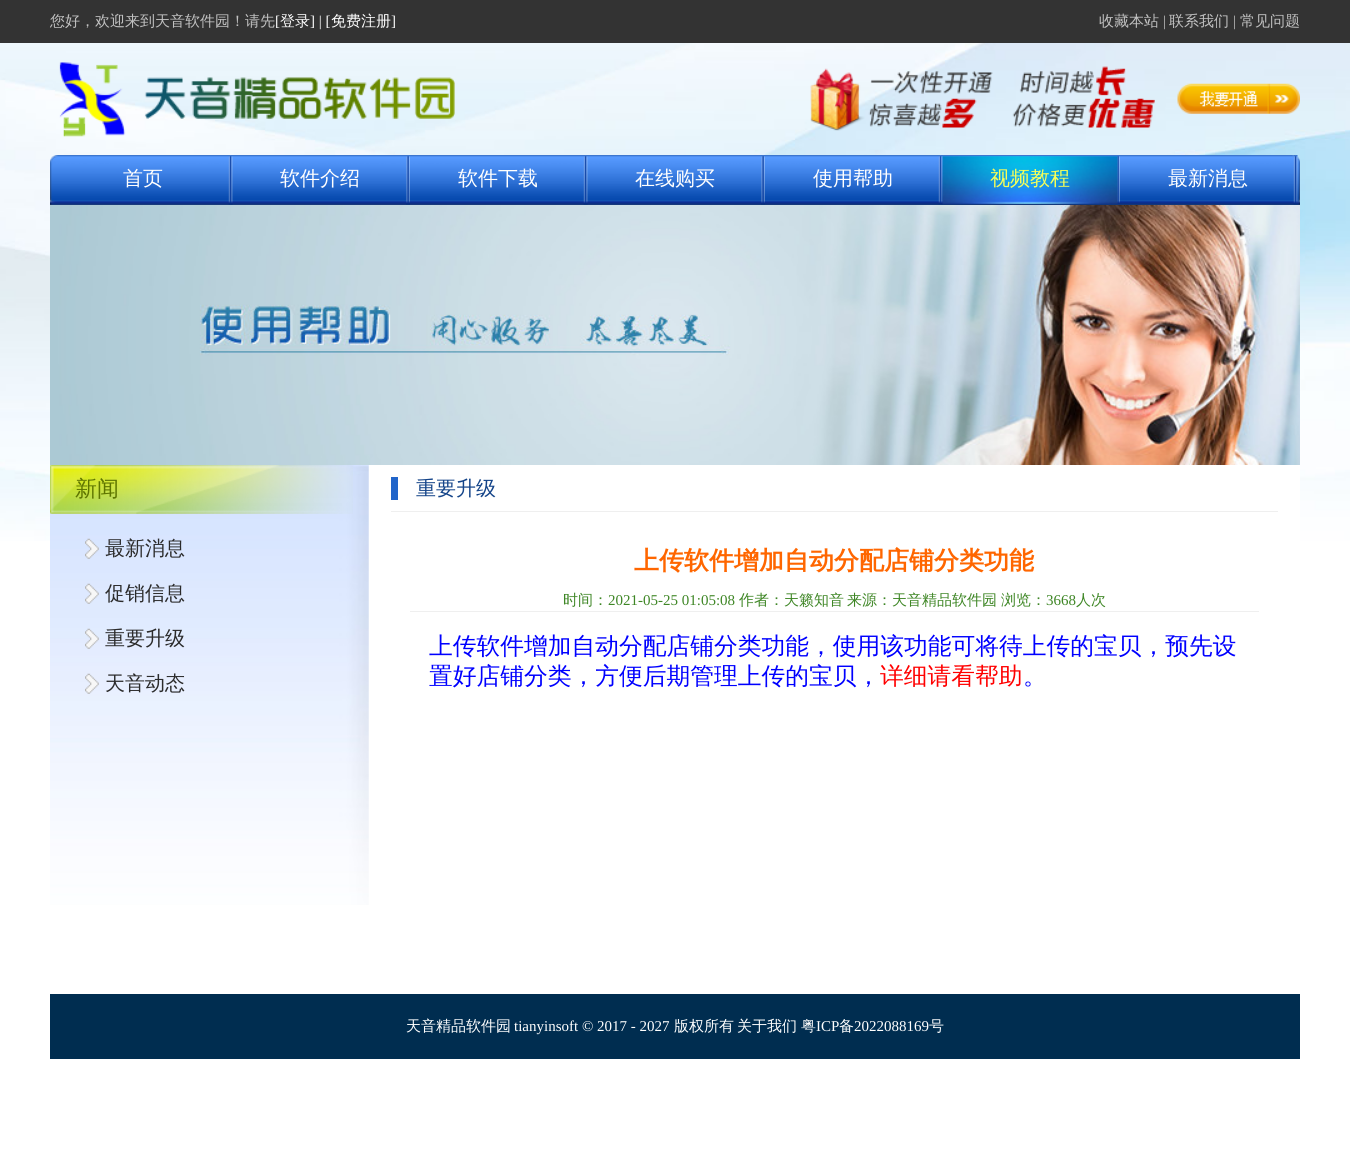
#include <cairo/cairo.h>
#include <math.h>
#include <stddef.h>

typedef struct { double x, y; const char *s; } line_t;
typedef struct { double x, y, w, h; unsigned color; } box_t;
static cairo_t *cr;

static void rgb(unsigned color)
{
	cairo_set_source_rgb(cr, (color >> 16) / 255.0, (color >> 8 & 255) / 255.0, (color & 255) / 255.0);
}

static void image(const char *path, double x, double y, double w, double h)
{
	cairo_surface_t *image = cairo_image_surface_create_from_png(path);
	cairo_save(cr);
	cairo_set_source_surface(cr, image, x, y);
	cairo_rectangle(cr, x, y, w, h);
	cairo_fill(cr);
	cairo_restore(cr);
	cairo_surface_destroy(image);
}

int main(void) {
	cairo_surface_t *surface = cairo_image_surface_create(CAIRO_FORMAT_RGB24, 1350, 1150);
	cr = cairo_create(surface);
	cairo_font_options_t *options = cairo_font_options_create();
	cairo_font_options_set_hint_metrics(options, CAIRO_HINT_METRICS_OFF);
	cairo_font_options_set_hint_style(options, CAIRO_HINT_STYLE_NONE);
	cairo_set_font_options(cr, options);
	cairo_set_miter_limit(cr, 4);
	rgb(0xffffff);
	cairo_paint(cr);
	image("img/1.png", 0, 43, 1350, 498);
	rgb(0x333333);
	cairo_rectangle(cr, 0, 0, 1350, 43);
	cairo_fill(cr);
	image("img/2.png", 59, 62, 396, 75);
	image("img/3.png", 810, 66, 345, 65);
	image("img/4.png", 1177, 83, 123, 31);
	image("img/5.png", 50, 155, 1250, 50);
	image("img/6.png", 228, 156, 5, 49);
	image("img/7.png", 406, 156, 4, 49);
	image("img/8.png", 583, 156, 5, 49);
	image("img/9.png", 761, 156, 4, 49);
	image("img/10.png", 938, 156, 5, 49);
	image("img/11.png", 1116, 156, 4, 47);
	image("img/12.png", 942, 156, 176, 48);
	image("img/13.png", 1293, 155, 5, 50);
	image("img/14.png", 50, 205, 1250, 260);
	rgb(0xffffff);
	cairo_rectangle(cr, 50, 465, 1250, 76);
	cairo_fill(cr);
	image("img/15.png", 50, 465, 319, 440);
	image("img/16.png", 50, 465, 303, 49);
	image("img/17.png", 85, 538, 14, 21);
	image("img/18.png", 85, 583, 14, 21);
	image("img/19.png", 85, 628, 14, 21);
	image("img/20.png", 85, 673, 14, 21);
	{
		static const box_t items[] = {
			{391, 477, 7, 23, 0x2165ca},
			{391, 511, 887, 1, 0xefefef},
			{410, 611, 849, 1, 0xefefef},
			{50, 994, 1250, 65, 0x002d50},
		};
		for (size_t i = 0; i < sizeof items / sizeof *items; i++) {
			rgb(items[i].color);
			cairo_rectangle(cr, items[i].x, items[i].y, items[i].w, items[i].h);
			cairo_fill(cr);
		}
	}
	cairo_select_font_face(cr, "WenQuanYi Zen Hei Medium", CAIRO_FONT_SLANT_NORMAL, CAIRO_FONT_WEIGHT_NORMAL);
	cairo_set_font_size(cr, 15);
	rgb(0xc1c1c1);
	cairo_move_to(cr, 50, 26);
	cairo_show_text(cr, "您好，欢迎来到天音软件园！请先");
	cairo_select_font_face(cr, "Liberation Serif", CAIRO_FONT_SLANT_NORMAL, CAIRO_FONT_WEIGHT_NORMAL);
	rgb(0xffffff);
	cairo_move_to(cr, 275, 26);
	cairo_show_text(cr, "[");
	cairo_select_font_face(cr, "WenQuanYi Zen Hei Medium", CAIRO_FONT_SLANT_NORMAL, CAIRO_FONT_WEIGHT_NORMAL);
	cairo_move_to(cr, 280, 26);
	cairo_show_text(cr, "登录");
	cairo_select_font_face(cr, "Liberation Serif", CAIRO_FONT_SLANT_NORMAL, CAIRO_FONT_WEIGHT_NORMAL);
	cairo_move_to(cr, 310, 26);
	cairo_show_text(cr, "] | [");
	cairo_select_font_face(cr, "WenQuanYi Zen Hei Medium", CAIRO_FONT_SLANT_NORMAL, CAIRO_FONT_WEIGHT_NORMAL);
	cairo_move_to(cr, 331, 26);
	cairo_show_text(cr, "免费注册");
	cairo_select_font_face(cr, "Liberation Serif", CAIRO_FONT_SLANT_NORMAL, CAIRO_FONT_WEIGHT_NORMAL);
	cairo_move_to(cr, 391, 26);
	cairo_show_text(cr, "]");
	cairo_select_font_face(cr, "WenQuanYi Zen Hei Medium", CAIRO_FONT_SLANT_NORMAL, CAIRO_FONT_WEIGHT_NORMAL);
	rgb(0xc1c1c1);
	cairo_move_to(cr, 1099, 26);
	cairo_show_text(cr, "收藏本站");
	cairo_select_font_face(cr, "Liberation Serif", CAIRO_FONT_SLANT_NORMAL, CAIRO_FONT_WEIGHT_NORMAL);
	cairo_move_to(cr, 1163, 26);
	cairo_show_text(cr, "|");
	cairo_select_font_face(cr, "WenQuanYi Zen Hei Medium", CAIRO_FONT_SLANT_NORMAL, CAIRO_FONT_WEIGHT_NORMAL);
	cairo_move_to(cr, 1169, 26);
	cairo_show_text(cr, "联系我们");
	cairo_select_font_face(cr, "Liberation Serif", CAIRO_FONT_SLANT_NORMAL, CAIRO_FONT_WEIGHT_NORMAL);
	cairo_move_to(cr, 1233, 26);
	cairo_show_text(cr, "|");
	cairo_select_font_face(cr, "WenQuanYi Zen Hei Medium", CAIRO_FONT_SLANT_NORMAL, CAIRO_FONT_WEIGHT_NORMAL);
	cairo_move_to(cr, 1240, 26);
	cairo_show_text(cr, "常见问题");
	cairo_set_font_size(cr, 20);
	rgb(0xffffff);
	{
		static const line_t items[] = {
			{123, 185, "首页"},
			{280, 185, "软件介绍"},
			{458, 185, "软件下载"},
			{635, 185, "在线购买"},
			{813, 185, "使用帮助"},
		};
		for (size_t i = 0; i < sizeof items / sizeof *items; i++) {
			cairo_move_to(cr, items[i].x, items[i].y);
			cairo_show_text(cr, items[i].s);
		}
	}
	rgb(0xf8ff57);
	cairo_move_to(cr, 990, 185);
	cairo_show_text(cr, "视频教程");
	rgb(0xffffff);
	cairo_move_to(cr, 1168, 185);
	cairo_show_text(cr, "最新消息");
	cairo_set_font_size(cr, 22);
	rgb(0x5e7500);
	cairo_move_to(cr, 75, 496);
	cairo_show_text(cr, "新闻");
	cairo_set_font_size(cr, 20);
	rgb(0x2b2b2b);
	{
		static const line_t items[] = {
			{105, 555, "最新消息"},
			{105, 600, "促销信息"},
			{105, 645, "重要升级"},
			{105, 690, "天音动态"},
		};
		for (size_t i = 0; i < sizeof items / sizeof *items; i++) {
			cairo_move_to(cr, items[i].x, items[i].y);
			cairo_show_text(cr, items[i].s);
		}
	}
	rgb(0x144489);
	cairo_move_to(cr, 416, 495);
	cairo_show_text(cr, "重要升级");
	cairo_select_font_face(cr, "WenQuanYi Zen Hei", CAIRO_FONT_SLANT_NORMAL, CAIRO_FONT_WEIGHT_BOLD);
	cairo_set_font_size(cr, 25);
	rgb(0xff6600);
	cairo_move_to(cr, 634, 569);
	cairo_show_text(cr, "上传软件增加自动分配店铺分类功能");
	cairo_select_font_face(cr, "WenQuanYi Zen Hei Medium", CAIRO_FONT_SLANT_NORMAL, CAIRO_FONT_WEIGHT_NORMAL);
	cairo_set_font_size(cr, 15);
	rgb(0x3e8625);
	cairo_move_to(cr, 563, 605);
	cairo_show_text(cr, "时间：");
	cairo_select_font_face(cr, "Liberation Serif", CAIRO_FONT_SLANT_NORMAL, CAIRO_FONT_WEIGHT_NORMAL);
	cairo_move_to(cr, 608, 605);
	cairo_show_text(cr, "2021-05-25 01:05:08");
	cairo_select_font_face(cr, "WenQuanYi Zen Hei Medium", CAIRO_FONT_SLANT_NORMAL, CAIRO_FONT_WEIGHT_NORMAL);
	{
		static const line_t items[] = {
			{739, 605, "作者：天籁知音"},
			{847, 605, "来源：天音精品软件园"},
			{1001, 605, "浏览："},
		};
		for (size_t i = 0; i < sizeof items / sizeof *items; i++) {
			cairo_move_to(cr, items[i].x, items[i].y);
			cairo_show_text(cr, items[i].s);
		}
	}
	cairo_select_font_face(cr, "Liberation Serif", CAIRO_FONT_SLANT_NORMAL, CAIRO_FONT_WEIGHT_NORMAL);
	cairo_move_to(cr, 1046, 605);
	cairo_show_text(cr, "3668");
	cairo_select_font_face(cr, "WenQuanYi Zen Hei Medium", CAIRO_FONT_SLANT_NORMAL, CAIRO_FONT_WEIGHT_NORMAL);
	cairo_move_to(cr, 1076, 605);
	cairo_show_text(cr, "人次");
	cairo_set_font_size(cr, 23.75);
	rgb(0x0000ff);
	cairo_move_to(cr, 429, 654);
	cairo_show_text(cr, "上传软件增加自动分配店铺分类功能，使用该功能可将待上传的宝贝，预先设");
	cairo_move_to(cr, 429, 684);
	cairo_show_text(cr, "置好店铺分类，方便后期管理上传的宝贝，");
	rgb(0xff0000);
	cairo_move_to(cr, 880, 684);
	cairo_show_text(cr, "详细请看帮助");
	rgb(0x0000ff);
	cairo_move_to(cr, 1023, 684);
	cairo_show_text(cr, "。");
	cairo_set_font_size(cr, 15);
	rgb(0xffffff);
	cairo_move_to(cr, 406, 1031);
	cairo_show_text(cr, "天音精品软件园");
	cairo_select_font_face(cr, "Liberation Serif", CAIRO_FONT_SLANT_NORMAL, CAIRO_FONT_WEIGHT_NORMAL);
	cairo_move_to(cr, 514, 1031);
	cairo_show_text(cr, "tianyinsoft © 2017 - 2027");
	cairo_select_font_face(cr, "WenQuanYi Zen Hei Medium", CAIRO_FONT_SLANT_NORMAL, CAIRO_FONT_WEIGHT_NORMAL);
	{
		static const line_t items[] = {
			{674, 1031, "版权所有"},
			{737, 1031, "关于我们"},
			{801, 1031, "粤"},
		};
		for (size_t i = 0; i < sizeof items / sizeof *items; i++) {
			cairo_move_to(cr, items[i].x, items[i].y);
			cairo_show_text(cr, items[i].s);
		}
	}
	cairo_select_font_face(cr, "Liberation Serif", CAIRO_FONT_SLANT_NORMAL, CAIRO_FONT_WEIGHT_NORMAL);
	cairo_move_to(cr, 816, 1031);
	cairo_show_text(cr, "ICP");
	cairo_select_font_face(cr, "WenQuanYi Zen Hei Medium", CAIRO_FONT_SLANT_NORMAL, CAIRO_FONT_WEIGHT_NORMAL);
	cairo_move_to(cr, 839, 1031);
	cairo_show_text(cr, "备");
	cairo_select_font_face(cr, "Liberation Serif", CAIRO_FONT_SLANT_NORMAL, CAIRO_FONT_WEIGHT_NORMAL);
	cairo_move_to(cr, 854, 1031);
	cairo_show_text(cr, "2022088169");
	cairo_select_font_face(cr, "WenQuanYi Zen Hei Medium", CAIRO_FONT_SLANT_NORMAL, CAIRO_FONT_WEIGHT_NORMAL);
	cairo_move_to(cr, 929, 1031);
	cairo_show_text(cr, "号");
	cairo_surface_write_to_png(surface, "page.png");
	cairo_font_options_destroy(options);
	cairo_destroy(cr);
	cairo_surface_destroy(surface);
	return 0;
}
